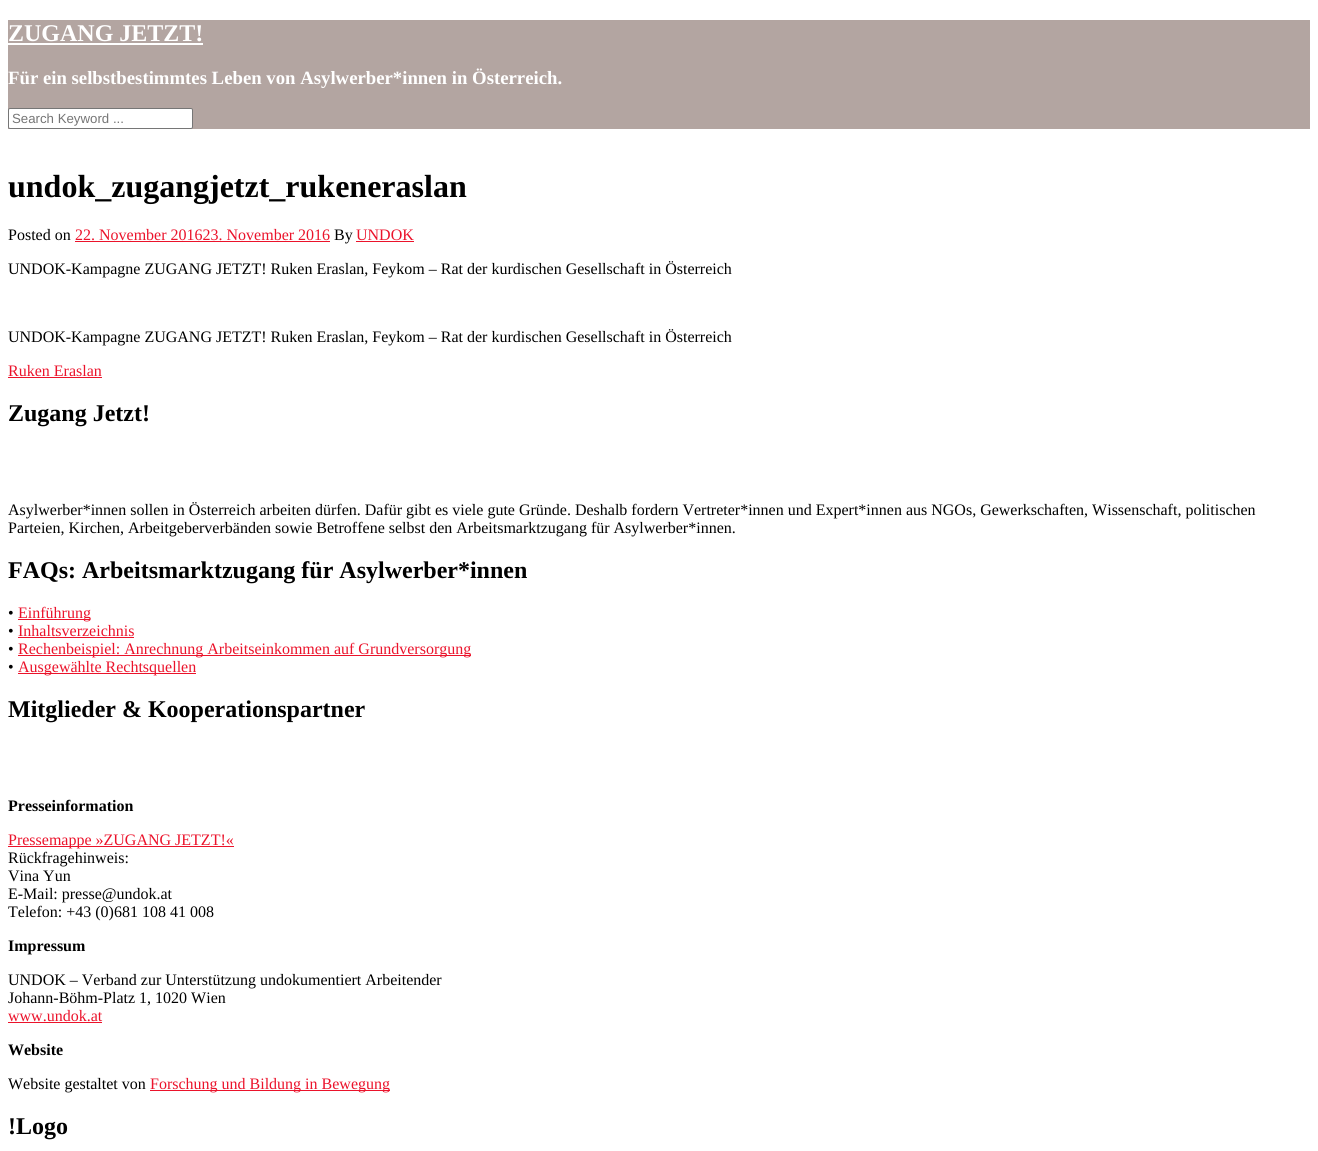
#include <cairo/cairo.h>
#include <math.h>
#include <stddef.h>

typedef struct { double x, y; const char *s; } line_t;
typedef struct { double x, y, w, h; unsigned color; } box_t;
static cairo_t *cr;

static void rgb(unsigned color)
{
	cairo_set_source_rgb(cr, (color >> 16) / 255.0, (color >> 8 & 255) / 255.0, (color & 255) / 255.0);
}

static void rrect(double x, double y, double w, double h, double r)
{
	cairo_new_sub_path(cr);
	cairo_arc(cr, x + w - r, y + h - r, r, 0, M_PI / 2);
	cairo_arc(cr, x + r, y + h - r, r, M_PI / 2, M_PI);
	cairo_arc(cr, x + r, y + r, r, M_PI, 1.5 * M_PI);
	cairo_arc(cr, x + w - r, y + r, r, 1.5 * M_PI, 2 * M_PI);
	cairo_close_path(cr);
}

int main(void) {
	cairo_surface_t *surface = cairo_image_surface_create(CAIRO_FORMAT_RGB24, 1318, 1151);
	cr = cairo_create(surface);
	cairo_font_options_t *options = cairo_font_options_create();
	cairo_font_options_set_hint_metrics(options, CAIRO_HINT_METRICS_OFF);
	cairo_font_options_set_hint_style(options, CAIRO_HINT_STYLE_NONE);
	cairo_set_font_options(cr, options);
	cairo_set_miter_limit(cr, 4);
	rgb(0xffffff);
	cairo_paint(cr);
	rgb(0xb3a5a1);
	cairo_rectangle(cr, 8, 20, 1302, 109);
	cairo_fill(cr);
	rgb(0xffffff);
	cairo_rectangle(cr, 8, 43, 195, 2);
	cairo_fill(cr);
	rrect(8.5, 108.5, 184, 20, 1.5);
	cairo_fill_preserve(cr);
	rgb(0x767676);
	cairo_set_line_width(cr, 1);
	cairo_stroke(cr);
	{
		static const box_t items[] = {
			{75, 241, 255, 1, 0xeb132b},
			{356, 241, 58, 1, 0xeb132b},
			{8, 377, 94, 1, 0xeb132b},
			{18, 619, 72, 1, 0xeb132b},
			{18, 637, 116, 1, 0xeb132b},
			{18, 655, 453, 1, 0xeb132b},
			{18, 673, 178, 1, 0xeb132b},
			{8, 846, 226, 1, 0xeb132b},
			{8, 1022, 94, 1, 0xeb132b},
			{150, 1090, 240, 1, 0xeb132b},
		};
		for (size_t i = 0; i < sizeof items / sizeof *items; i++) {
			rgb(items[i].color);
			cairo_rectangle(cr, items[i].x, items[i].y, items[i].w, items[i].h);
			cairo_fill(cr);
		}
	}
	cairo_select_font_face(cr, "Liberation Serif", CAIRO_FONT_SLANT_NORMAL, CAIRO_FONT_WEIGHT_BOLD);
	cairo_set_font_size(cr, 24);
	rgb(0xffffff);
	cairo_move_to(cr, 8, 41);
	cairo_show_text(cr, "ZUGANG JETZT!");
	cairo_set_font_size(cr, 18.75);
	cairo_move_to(cr, 8, 84);
	cairo_show_text(cr, "Für ein selbstbestimmtes Leben von Asylwerber*innen in Österreich.");
	cairo_select_font_face(cr, "Liberation Sans", CAIRO_FONT_SLANT_NORMAL, CAIRO_FONT_WEIGHT_NORMAL);
	cairo_set_font_size(cr, 13.25);
	rgb(0x757575);
	cairo_move_to(cr, 12, 123);
	cairo_show_text(cr, "Search Keyword ...");
	cairo_select_font_face(cr, "Liberation Serif", CAIRO_FONT_SLANT_NORMAL, CAIRO_FONT_WEIGHT_BOLD);
	cairo_set_font_size(cr, 32);
	rgb(0x000000);
	cairo_move_to(cr, 8, 197);
	cairo_show_text(cr, "undok_zugangjetzt_rukeneraslan");
	cairo_select_font_face(cr, "Liberation Serif", CAIRO_FONT_SLANT_NORMAL, CAIRO_FONT_WEIGHT_NORMAL);
	cairo_set_font_size(cr, 16);
	cairo_move_to(cr, 8, 240);
	cairo_show_text(cr, "Posted on");
	rgb(0xeb132b);
	cairo_move_to(cr, 75, 240);
	cairo_show_text(cr, "22. November 201623. November 2016");
	rgb(0x000000);
	cairo_move_to(cr, 334, 240);
	cairo_show_text(cr, "By");
	rgb(0xeb132b);
	cairo_move_to(cr, 356, 240);
	cairo_show_text(cr, "UNDOK");
	rgb(0x000000);
	cairo_move_to(cr, 8, 274);
	cairo_show_text(cr, "UNDOK-Kampagne ZUGANG JETZT! Ruken Eraslan, Feykom – Rat der kurdischen Gesellschaft in Österreich");
	cairo_move_to(cr, 8, 342);
	cairo_show_text(cr, "UNDOK-Kampagne ZUGANG JETZT! Ruken Eraslan, Feykom – Rat der kurdischen Gesellschaft in Österreich");
	rgb(0xeb132b);
	cairo_move_to(cr, 8, 376);
	cairo_show_text(cr, "Ruken Eraslan");
	cairo_select_font_face(cr, "Liberation Serif", CAIRO_FONT_SLANT_NORMAL, CAIRO_FONT_WEIGHT_BOLD);
	cairo_set_font_size(cr, 24);
	rgb(0x000000);
	cairo_move_to(cr, 8, 421);
	cairo_show_text(cr, "Zugang Jetzt!");
	cairo_select_font_face(cr, "Liberation Serif", CAIRO_FONT_SLANT_NORMAL, CAIRO_FONT_WEIGHT_NORMAL);
	cairo_set_font_size(cr, 16);
	cairo_move_to(cr, 8, 515);
	cairo_show_text(cr, "Asylwerber*innen sollen in Österreich arbeiten dürfen. Dafür gibt es viele gute Gründe. Deshalb fordern Vertreter*innen und Expert*innen aus NGOs, Gewerkschaften, Wissenschaft, politischen");
	cairo_move_to(cr, 8, 533);
	cairo_show_text(cr, "Parteien, Kirchen, Arbeitgeberverbänden sowie Betroffene selbst den Arbeitsmarktzugang für Asylwerber*innen.");
	cairo_select_font_face(cr, "Liberation Serif", CAIRO_FONT_SLANT_NORMAL, CAIRO_FONT_WEIGHT_BOLD);
	cairo_set_font_size(cr, 24);
	cairo_move_to(cr, 8, 578);
	cairo_show_text(cr, "FAQs: Arbeitsmarktzugang für Asylwerber*innen");
	cairo_select_font_face(cr, "Liberation Serif", CAIRO_FONT_SLANT_NORMAL, CAIRO_FONT_WEIGHT_NORMAL);
	cairo_set_font_size(cr, 16);
	cairo_move_to(cr, 8, 618);
	cairo_show_text(cr, "•");
	rgb(0xeb132b);
	cairo_move_to(cr, 18, 618);
	cairo_show_text(cr, "Einführung");
	rgb(0x000000);
	cairo_move_to(cr, 8, 636);
	cairo_show_text(cr, "•");
	rgb(0xeb132b);
	cairo_move_to(cr, 18, 636);
	cairo_show_text(cr, "Inhaltsverzeichnis");
	rgb(0x000000);
	cairo_move_to(cr, 8, 654);
	cairo_show_text(cr, "•");
	rgb(0xeb132b);
	cairo_move_to(cr, 18, 654);
	cairo_show_text(cr, "Rechenbeispiel: Anrechnung Arbeitseinkommen auf Grundversorgung");
	rgb(0x000000);
	cairo_move_to(cr, 8, 672);
	cairo_show_text(cr, "•");
	rgb(0xeb132b);
	cairo_move_to(cr, 18, 672);
	cairo_show_text(cr, "Ausgewählte Rechtsquellen");
	cairo_select_font_face(cr, "Liberation Serif", CAIRO_FONT_SLANT_NORMAL, CAIRO_FONT_WEIGHT_BOLD);
	cairo_set_font_size(cr, 24);
	rgb(0x000000);
	cairo_move_to(cr, 8, 717);
	cairo_show_text(cr, "Mitglieder & Kooperationspartner");
	cairo_set_font_size(cr, 16);
	cairo_move_to(cr, 8, 811);
	cairo_show_text(cr, "Presseinformation");
	cairo_select_font_face(cr, "Liberation Serif", CAIRO_FONT_SLANT_NORMAL, CAIRO_FONT_WEIGHT_NORMAL);
	rgb(0xeb132b);
	cairo_move_to(cr, 8, 845);
	cairo_show_text(cr, "Pressemappe »ZUGANG JETZT!«");
	rgb(0x000000);
	{
		static const line_t items[] = {
			{8, 863, "Rückfragehinweis:"},
			{8, 881, "Vina Yun"},
			{8, 899, "E-Mail: presse@undok.at"},
			{8, 917, "Telefon: +43 (0)681 108 41 008"},
		};
		for (size_t i = 0; i < sizeof items / sizeof *items; i++) {
			cairo_move_to(cr, items[i].x, items[i].y);
			cairo_show_text(cr, items[i].s);
		}
	}
	cairo_select_font_face(cr, "Liberation Serif", CAIRO_FONT_SLANT_NORMAL, CAIRO_FONT_WEIGHT_BOLD);
	cairo_move_to(cr, 8, 951);
	cairo_show_text(cr, "Impressum");
	cairo_select_font_face(cr, "Liberation Serif", CAIRO_FONT_SLANT_NORMAL, CAIRO_FONT_WEIGHT_NORMAL);
	cairo_move_to(cr, 8, 985);
	cairo_show_text(cr, "UNDOK – Verband zur Unterstützung undokumentiert Arbeitender");
	cairo_move_to(cr, 8, 1003);
	cairo_show_text(cr, "Johann-Böhm-Platz 1, 1020 Wien");
	rgb(0xeb132b);
	cairo_move_to(cr, 8, 1021);
	cairo_show_text(cr, "www.undok.at");
	cairo_select_font_face(cr, "Liberation Serif", CAIRO_FONT_SLANT_NORMAL, CAIRO_FONT_WEIGHT_BOLD);
	rgb(0x000000);
	cairo_move_to(cr, 8, 1055);
	cairo_show_text(cr, "Website");
	cairo_select_font_face(cr, "Liberation Serif", CAIRO_FONT_SLANT_NORMAL, CAIRO_FONT_WEIGHT_NORMAL);
	cairo_move_to(cr, 8, 1089);
	cairo_show_text(cr, "Website gestaltet von");
	rgb(0xeb132b);
	cairo_move_to(cr, 150, 1089);
	cairo_show_text(cr, "Forschung und Bildung in Bewegung");
	cairo_select_font_face(cr, "Liberation Serif", CAIRO_FONT_SLANT_NORMAL, CAIRO_FONT_WEIGHT_BOLD);
	cairo_set_font_size(cr, 24);
	rgb(0x000000);
	cairo_move_to(cr, 8, 1134);
	cairo_show_text(cr, "!Logo");
	cairo_surface_write_to_png(surface, "page.png");
	cairo_font_options_destroy(options);
	cairo_destroy(cr);
	cairo_surface_destroy(surface);
	return 0;
}
